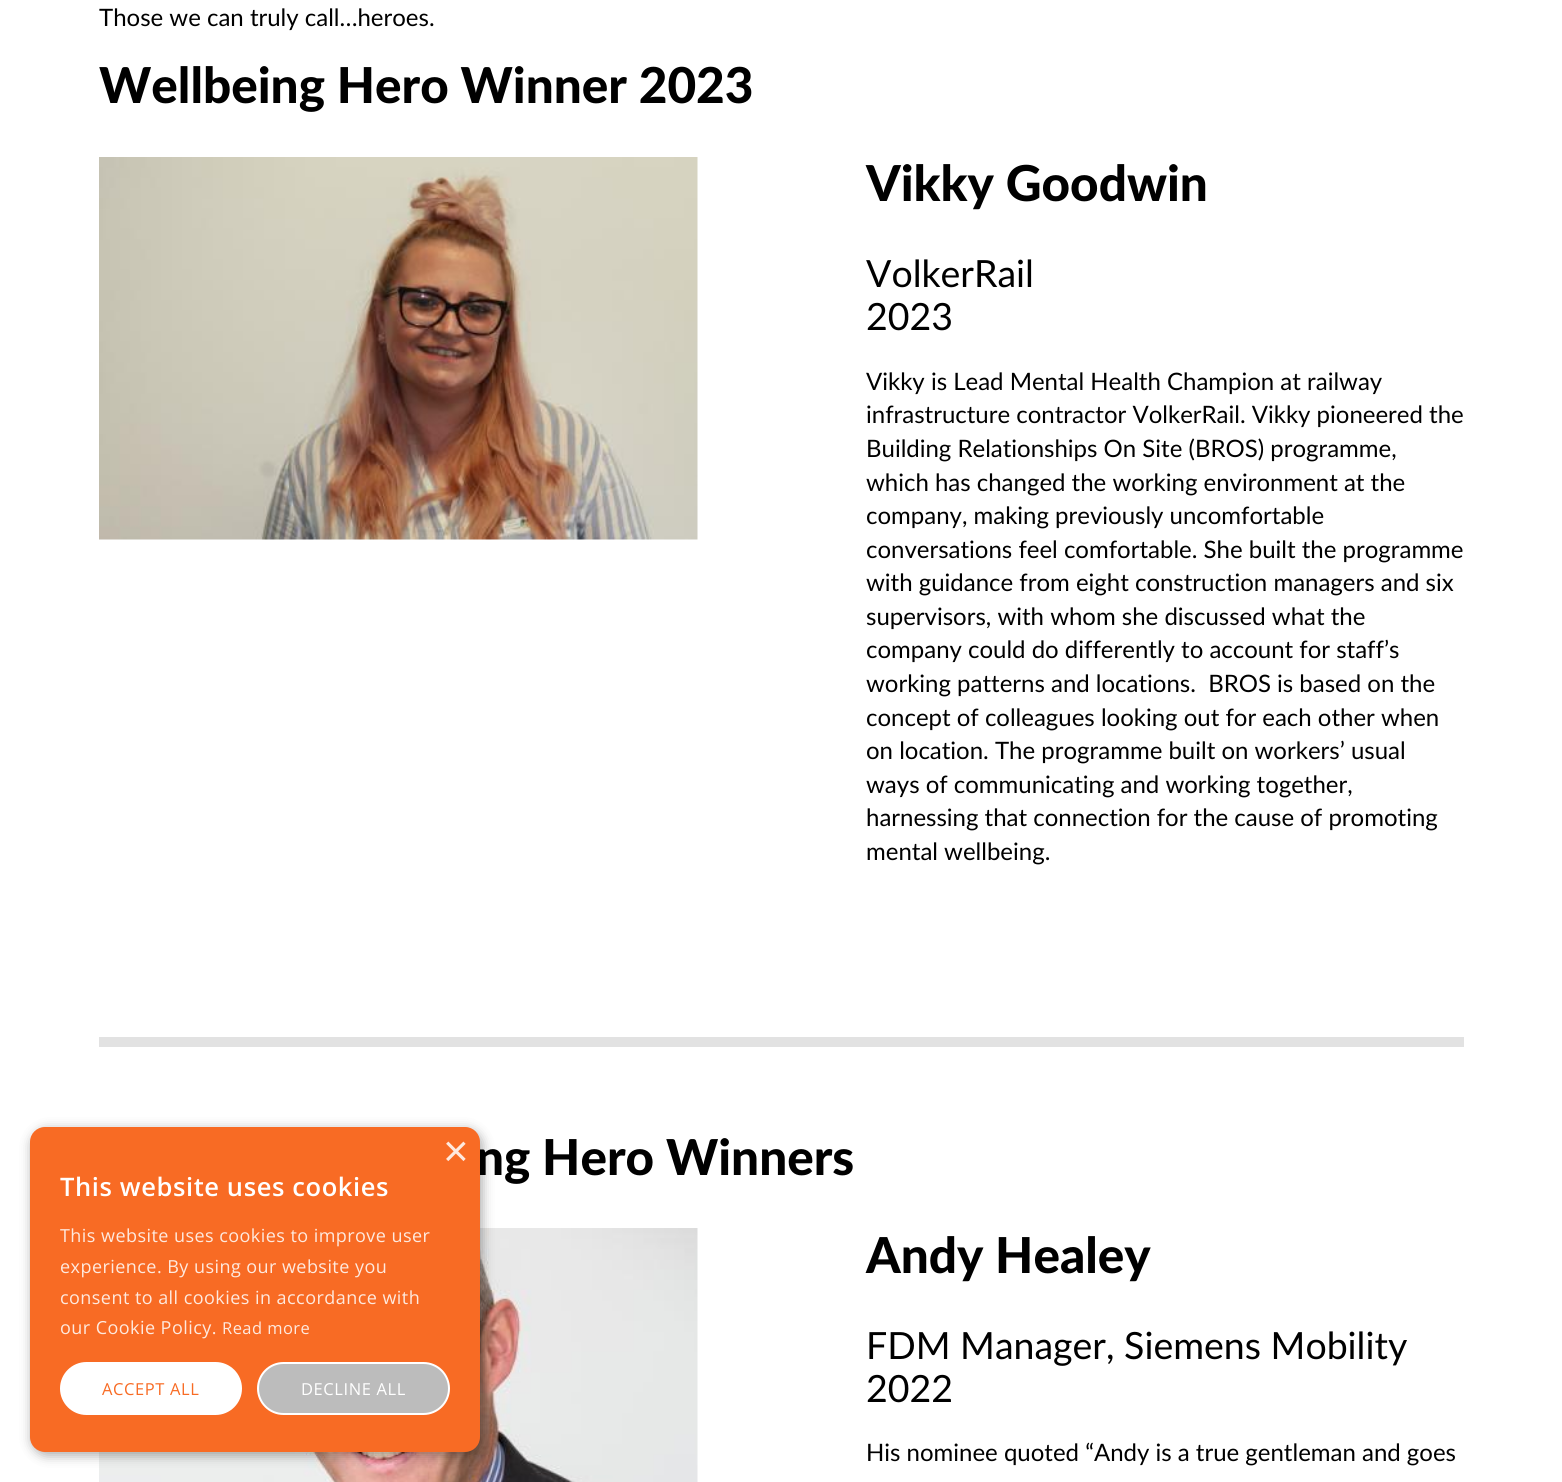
#include <cairo/cairo.h>
#include <math.h>
#include <stddef.h>

typedef struct { double x, y; const char *s; } line_t;
static cairo_t *cr;

static void rgb(unsigned color)
{
	cairo_set_source_rgb(cr, (color >> 16) / 255.0, (color >> 8 & 255) / 255.0, (color & 255) / 255.0);
}

static void tracked(double x, double y, const char *s, double letter, double word)
{
	cairo_move_to(cr, x, y);
	while (*s) {
		char ch[5] = {0};
		int n = 0;
		do ch[n++] = *s++; while ((*s & 0xC0) == 0x80);
		cairo_show_text(cr, ch);
		cairo_rel_move_to(cr, letter + word * (*ch == ' '), 0);
	}
}

static void rrect(double x, double y, double w, double h, double r)
{
	cairo_new_sub_path(cr);
	cairo_arc(cr, x + w - r, y + h - r, r, 0, M_PI / 2);
	cairo_arc(cr, x + r, y + h - r, r, M_PI / 2, M_PI);
	cairo_arc(cr, x + r, y + r, r, M_PI, 1.5 * M_PI);
	cairo_arc(cr, x + w - r, y + r, r, 1.5 * M_PI, 2 * M_PI);
	cairo_close_path(cr);
}

static void soft_shadow(double x, double y, double w, double h, double r, double blur, double alpha)
{
	cairo_push_group_with_content(cr, CAIRO_CONTENT_ALPHA);
	cairo_set_operator(cr, CAIRO_OPERATOR_SOURCE);
	for (int i = 15; i >= -15 && fmin(w, h) + blur * i / 3 > 0; i -= 2) {
		double e = blur * i / 6;
		cairo_set_source_rgba(cr, 0, 0, 0, alpha * erfc((i - 1) / 8.5) / 2);
		rrect(x - e, y - e, w + 2 * e, h + 2 * e, fmax(0, fmin(r + e + blur * .6, fmin(w, h) / 2 + e)));
		cairo_fill(cr);
	}
	cairo_pattern_t *soft = cairo_pop_group(cr);
	cairo_mask(cr, soft);
	cairo_pattern_destroy(soft);
}

static void image(const char *path, double x, double y, double w, double h)
{
	cairo_surface_t *image = cairo_image_surface_create_from_png(path);
	cairo_save(cr);
	cairo_set_source_surface(cr, image, x, y);
	cairo_rectangle(cr, x, y, w, h);
	cairo_fill(cr);
	cairo_restore(cr);
	cairo_surface_destroy(image);
}

int main(void) {
	cairo_surface_t *surface = cairo_image_surface_create(CAIRO_FORMAT_RGB24, 1562, 1482);
	cr = cairo_create(surface);
	cairo_font_options_t *options = cairo_font_options_create();
	cairo_font_options_set_hint_metrics(options, CAIRO_HINT_METRICS_OFF);
	cairo_font_options_set_hint_style(options, CAIRO_HINT_STYLE_NONE);
	cairo_set_font_options(cr, options);
	cairo_set_miter_limit(cr, 4);
	rgb(0xffffff);
	cairo_paint(cr);
	image("img/1.png", 99, 157, 599, 383);
	rgb(0xe2e2e2);
	cairo_rectangle(cr, 99, 1037, 1365, 10);
	cairo_fill(cr);
	image("img/2.png", 99, 1228, 599, 254);
	rgb(0x000000);
	soft_shadow(32, 1130, 450, 325, 15, 6, 0.35);
	cairo_select_font_face(cr, "Lato", CAIRO_FONT_SLANT_NORMAL, CAIRO_FONT_WEIGHT_NORMAL);
	cairo_set_font_size(cr, 24);
	rgb(0x000000);
	cairo_move_to(cr, 99, 26);
	cairo_show_text(cr, "Those we can truly call…heroes.");
	cairo_select_font_face(cr, "Lato Black", CAIRO_FONT_SLANT_NORMAL, CAIRO_FONT_WEIGHT_NORMAL);
	cairo_set_font_size(cr, 49.5);
	cairo_move_to(cr, 99, 103);
	cairo_show_text(cr, "Wellbeing Hero Winner 2023");
	cairo_move_to(cr, 866, 201);
	cairo_show_text(cr, "Vikky Goodwin");
	cairo_select_font_face(cr, "Lato", CAIRO_FONT_SLANT_NORMAL, CAIRO_FONT_WEIGHT_NORMAL);
	cairo_set_font_size(cr, 37.5);
	cairo_move_to(cr, 866, 287);
	cairo_show_text(cr, "VolkerRail");
	cairo_move_to(cr, 866, 330);
	cairo_show_text(cr, "2023");
	cairo_set_font_size(cr, 24);
	{
		static const line_t items[] = {
			{866, 390, "Vikky is Lead Mental Health Champion at railway"},
			{866, 423, "infrastructure contractor VolkerRail. Vikky pioneered the"},
			{866, 457, "Building Relationships On Site (BROS) programme,"},
			{866, 491, "which has changed the working environment at the"},
			{866, 524, "company, making previously uncomfortable"},
			{866, 558, "conversations feel comfortable. She built the programme"},
			{866, 591, "with guidance from eight construction managers and six"},
			{866, 625, "supervisors, with whom she discussed what the"},
			{866, 658, "company could do differently to account for staff’s"},
			{866, 692, "working patterns and locations.  BROS is based on the"},
			{866, 726, "concept of colleagues looking out for each other when"},
			{866, 759, "on location. The programme built on workers’ usual"},
			{866, 793, "ways of communicating and working together,"},
			{866, 826, "harnessing that connection for the cause of promoting"},
			{866, 860, "mental wellbeing."},
		};
		for (size_t i = 0; i < sizeof items / sizeof *items; i++) {
			cairo_move_to(cr, items[i].x, items[i].y);
			cairo_show_text(cr, items[i].s);
		}
	}
	cairo_select_font_face(cr, "Lato Black", CAIRO_FONT_SLANT_NORMAL, CAIRO_FONT_WEIGHT_NORMAL);
	cairo_set_font_size(cr, 49.5);
	cairo_move_to(cr, 476, 1175);
	cairo_show_text(cr, "ng Hero Winners");
	cairo_move_to(cr, 866, 1273);
	cairo_show_text(cr, "Andy Healey");
	cairo_select_font_face(cr, "Lato", CAIRO_FONT_SLANT_NORMAL, CAIRO_FONT_WEIGHT_NORMAL);
	cairo_set_font_size(cr, 37.5);
	cairo_move_to(cr, 866, 1359);
	cairo_show_text(cr, "FDM Manager, Siemens Mobility");
	cairo_move_to(cr, 866, 1402);
	cairo_show_text(cr, "2022");
	cairo_set_font_size(cr, 24);
	cairo_move_to(cr, 866, 1461);
	cairo_show_text(cr, "His nominee quoted “Andy is a true gentleman and goes");
	rgb(0xf86b24);
	rrect(30, 1127, 450, 325, 15);
	cairo_fill(cr);
	cairo_select_font_face(cr, "Liberation Sans", CAIRO_FONT_SLANT_NORMAL, CAIRO_FONT_WEIGHT_NORMAL);
	cairo_set_font_size(cr, 44);
	rgb(0xfee9de);
	cairo_move_to(cr, 443, 1166);
	cairo_show_text(cr, "×");
	cairo_select_font_face(cr, "Open Sans SemiBold", CAIRO_FONT_SLANT_NORMAL, CAIRO_FONT_WEIGHT_NORMAL);
	cairo_set_font_size(cr, 25.5);
	rgb(0xffffff);
	tracked(60, 1196, "This website uses cookies", 0.6, 0);
	cairo_select_font_face(cr, "Open Sans", CAIRO_FONT_SLANT_NORMAL, CAIRO_FONT_WEIGHT_NORMAL);
	cairo_set_font_size(cr, 18);
	rgb(0xfee9de);
	{
		static const line_t items[] = {
			{60, 1242, "This website uses cookies to improve user"},
			{60, 1273, "experience. By using our website you"},
			{60, 1304, "consent to all cookies in accordance with"},
			{60, 1334, "our Cookie Policy."},
		};
		for (size_t i = 0; i < sizeof items / sizeof *items; i++) {
			tracked(items[i].x, items[i].y, items[i].s, 0.45, 0);
		}
	}
	cairo_set_font_size(cr, 16.5);
	tracked(222, 1334, "Read more", 0.45, 0);
	rgb(0xffffff);
	rrect(60, 1362, 182, 53, 26.5);
	cairo_fill(cr);
	rgb(0xf86b24);
	tracked(102, 1395, "ACCEPT ALL", 0.6, 0);
	rgb(0xbcbcbc);
	rrect(258, 1363, 191, 51, 25.5);
	cairo_fill_preserve(cr);
	rgb(0xffffff);
	cairo_stroke(cr);
	tracked(301, 1395, "DECLINE ALL", 0.6, 0);
	cairo_surface_write_to_png(surface, "page.png");
	cairo_font_options_destroy(options);
	cairo_destroy(cr);
	cairo_surface_destroy(surface);
	return 0;
}
